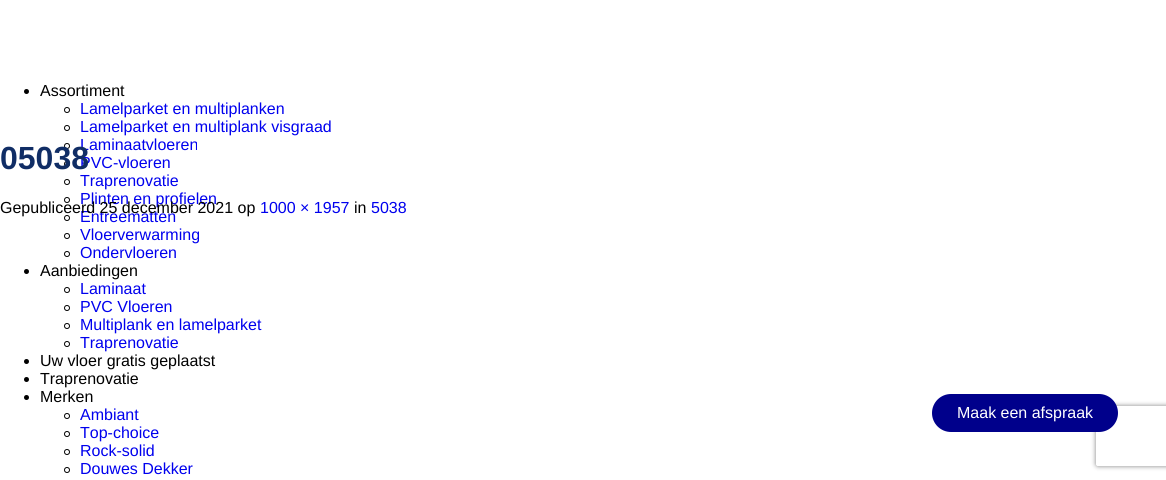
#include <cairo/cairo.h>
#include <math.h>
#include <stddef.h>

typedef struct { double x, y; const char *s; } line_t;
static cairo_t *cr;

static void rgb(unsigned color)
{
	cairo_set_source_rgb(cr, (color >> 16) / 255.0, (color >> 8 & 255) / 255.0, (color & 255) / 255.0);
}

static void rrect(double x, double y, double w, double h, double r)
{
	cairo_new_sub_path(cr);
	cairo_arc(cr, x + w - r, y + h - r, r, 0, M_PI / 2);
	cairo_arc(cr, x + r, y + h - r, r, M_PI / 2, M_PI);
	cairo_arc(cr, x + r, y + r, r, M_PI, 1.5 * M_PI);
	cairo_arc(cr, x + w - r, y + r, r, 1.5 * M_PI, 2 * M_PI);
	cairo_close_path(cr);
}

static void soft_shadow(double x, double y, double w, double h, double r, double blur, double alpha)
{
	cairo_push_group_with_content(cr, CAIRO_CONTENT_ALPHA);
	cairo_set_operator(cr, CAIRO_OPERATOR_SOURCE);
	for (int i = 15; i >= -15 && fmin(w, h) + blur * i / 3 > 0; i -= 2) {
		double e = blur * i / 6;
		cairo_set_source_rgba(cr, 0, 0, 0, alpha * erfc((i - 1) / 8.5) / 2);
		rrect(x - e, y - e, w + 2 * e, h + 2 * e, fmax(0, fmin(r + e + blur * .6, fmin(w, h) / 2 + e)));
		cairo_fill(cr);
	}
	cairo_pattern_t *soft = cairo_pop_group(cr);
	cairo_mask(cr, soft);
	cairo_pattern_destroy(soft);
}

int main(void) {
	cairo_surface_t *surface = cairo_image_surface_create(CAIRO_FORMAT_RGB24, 1166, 480);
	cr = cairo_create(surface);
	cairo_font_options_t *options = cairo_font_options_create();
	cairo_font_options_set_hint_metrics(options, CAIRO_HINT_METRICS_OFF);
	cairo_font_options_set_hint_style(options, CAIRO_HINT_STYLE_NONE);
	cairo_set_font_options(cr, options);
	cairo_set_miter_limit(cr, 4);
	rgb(0xffffff);
	cairo_paint(cr);
	rgb(0x000000);
	cairo_arc(cr, 26.5, 91.5, 2.5, 0, 2 * M_PI);
	cairo_fill(cr);
	cairo_arc(cr, 67, 110, 2.5, 0, 2 * M_PI);
	cairo_set_line_width(cr, 1);
	cairo_stroke(cr);
	cairo_arc(cr, 67, 128, 2.5, 0, 2 * M_PI);
	cairo_stroke(cr);
	cairo_arc(cr, 67, 146, 2.5, 0, 2 * M_PI);
	cairo_stroke(cr);
	cairo_arc(cr, 67, 164, 2.5, 0, 2 * M_PI);
	cairo_stroke(cr);
	cairo_arc(cr, 67, 182, 2.5, 0, 2 * M_PI);
	cairo_stroke(cr);
	cairo_arc(cr, 67, 200, 2.5, 0, 2 * M_PI);
	cairo_stroke(cr);
	cairo_arc(cr, 67, 218, 2.5, 0, 2 * M_PI);
	cairo_stroke(cr);
	cairo_arc(cr, 67, 236, 2.5, 0, 2 * M_PI);
	cairo_stroke(cr);
	cairo_arc(cr, 67, 254, 2.5, 0, 2 * M_PI);
	cairo_stroke(cr);
	cairo_arc(cr, 26.5, 271.5, 2.5, 0, 2 * M_PI);
	cairo_fill(cr);
	cairo_arc(cr, 67, 290, 2.5, 0, 2 * M_PI);
	cairo_stroke(cr);
	cairo_arc(cr, 67, 308, 2.5, 0, 2 * M_PI);
	cairo_stroke(cr);
	cairo_arc(cr, 67, 326, 2.5, 0, 2 * M_PI);
	cairo_stroke(cr);
	cairo_arc(cr, 67, 344, 2.5, 0, 2 * M_PI);
	cairo_stroke(cr);
	cairo_arc(cr, 26.5, 361.5, 2.5, 0, 2 * M_PI);
	cairo_fill(cr);
	cairo_arc(cr, 26.5, 379.5, 2.5, 0, 2 * M_PI);
	cairo_fill(cr);
	cairo_arc(cr, 26.5, 397.5, 2.5, 0, 2 * M_PI);
	cairo_fill(cr);
	cairo_arc(cr, 67, 416, 2.5, 0, 2 * M_PI);
	cairo_stroke(cr);
	cairo_arc(cr, 67, 434, 2.5, 0, 2 * M_PI);
	cairo_stroke(cr);
	cairo_arc(cr, 67, 452, 2.5, 0, 2 * M_PI);
	cairo_stroke(cr);
	cairo_arc(cr, 67, 470, 2.5, 0, 2 * M_PI);
	cairo_stroke(cr);
	cairo_save(cr);
	cairo_set_fill_rule(cr, CAIRO_FILL_RULE_EVEN_ODD);
	cairo_new_path(cr);
	cairo_move_to(cr, 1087, 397);
	cairo_line_to(cr, 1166, 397);
	cairo_line_to(cr, 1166, 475);
	cairo_line_to(cr, 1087, 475);
	cairo_close_path(cr);
	cairo_move_to(cr, 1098, 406);
	cairo_line_to(cr, 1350, 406);
	cairo_curve_to(cr, 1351, 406, 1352, 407, 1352, 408);
	cairo_line_to(cr, 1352, 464);
	cairo_curve_to(cr, 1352, 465, 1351, 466, 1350, 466);
	cairo_line_to(cr, 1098, 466);
	cairo_curve_to(cr, 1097, 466, 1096, 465, 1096, 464);
	cairo_line_to(cr, 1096, 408);
	cairo_curve_to(cr, 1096, 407, 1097, 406, 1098, 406);
	cairo_close_path(cr);
	cairo_clip(cr);
	rgb(0x808080);
	soft_shadow(1096, 406, 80, 60, 2, 2.5, 1);
	cairo_restore(cr);
	rgb(0x00008b);
	rrect(932, 394, 186, 38, 19);
	cairo_fill(cr);
	cairo_select_font_face(cr, "Liberation Sans", CAIRO_FONT_SLANT_NORMAL, CAIRO_FONT_WEIGHT_NORMAL);
	cairo_set_font_size(cr, 16);
	rgb(0x000000);
	cairo_move_to(cr, 40, 96);
	cairo_show_text(cr, "Assortiment");
	rgb(0x0000ee);
	{
		static const line_t items[] = {
			{80, 114, "Lamelparket en multiplanken"},
			{80, 132, "Lamelparket en multiplank visgraad"},
			{80, 150, "Laminaatvloeren"},
			{80, 168, "PVC-vloeren"},
			{80, 186, "Traprenovatie"},
			{80, 204, "Plinten en profielen"},
			{80, 222, "Entreematten"},
			{80, 240, "Vloerverwarming"},
			{80, 258, "Ondervloeren"},
		};
		for (size_t i = 0; i < sizeof items / sizeof *items; i++) {
			cairo_move_to(cr, items[i].x, items[i].y);
			cairo_show_text(cr, items[i].s);
		}
	}
	rgb(0x000000);
	cairo_move_to(cr, 40, 276);
	cairo_show_text(cr, "Aanbiedingen");
	rgb(0x0000ee);
	{
		static const line_t items[] = {
			{80, 294, "Laminaat"},
			{80, 312, "PVC Vloeren"},
			{80, 330, "Multiplank en lamelparket"},
			{80, 348, "Traprenovatie"},
		};
		for (size_t i = 0; i < sizeof items / sizeof *items; i++) {
			cairo_move_to(cr, items[i].x, items[i].y);
			cairo_show_text(cr, items[i].s);
		}
	}
	rgb(0x000000);
	{
		static const line_t items[] = {
			{40, 366, "Uw vloer gratis geplaatst"},
			{40, 384, "Traprenovatie"},
			{40, 402, "Merken"},
		};
		for (size_t i = 0; i < sizeof items / sizeof *items; i++) {
			cairo_move_to(cr, items[i].x, items[i].y);
			cairo_show_text(cr, items[i].s);
		}
	}
	rgb(0x0000ee);
	{
		static const line_t items[] = {
			{80, 420, "Ambiant"},
			{80, 438, "Top-choice"},
			{80, 456, "Rock-solid"},
			{80, 474, "Douwes Dekker"},
		};
		for (size_t i = 0; i < sizeof items / sizeof *items; i++) {
			cairo_move_to(cr, items[i].x, items[i].y);
			cairo_show_text(cr, items[i].s);
		}
	}
	cairo_select_font_face(cr, "Liberation Sans", CAIRO_FONT_SLANT_NORMAL, CAIRO_FONT_WEIGHT_BOLD);
	cairo_set_font_size(cr, 32);
	rgb(0x102d65);
	cairo_move_to(cr, 0, 169);
	cairo_show_text(cr, "05038");
	cairo_select_font_face(cr, "Liberation Sans", CAIRO_FONT_SLANT_NORMAL, CAIRO_FONT_WEIGHT_NORMAL);
	cairo_set_font_size(cr, 16);
	rgb(0x000000);
	cairo_move_to(cr, 0, 213);
	cairo_show_text(cr, "Gepubliceerd 25 december 2021 op");
	rgb(0x0000ee);
	cairo_move_to(cr, 260, 213);
	cairo_show_text(cr, "1000 × 1957");
	rgb(0x000000);
	cairo_move_to(cr, 354, 213);
	cairo_show_text(cr, "in");
	rgb(0x0000ee);
	cairo_move_to(cr, 371, 213);
	cairo_show_text(cr, "5038");
	rgb(0xffffff);
	cairo_move_to(cr, 957, 418);
	cairo_show_text(cr, "Maak een afspraak");
	cairo_surface_write_to_png(surface, "page.png");
	cairo_font_options_destroy(options);
	cairo_destroy(cr);
	cairo_surface_destroy(surface);
	return 0;
}
